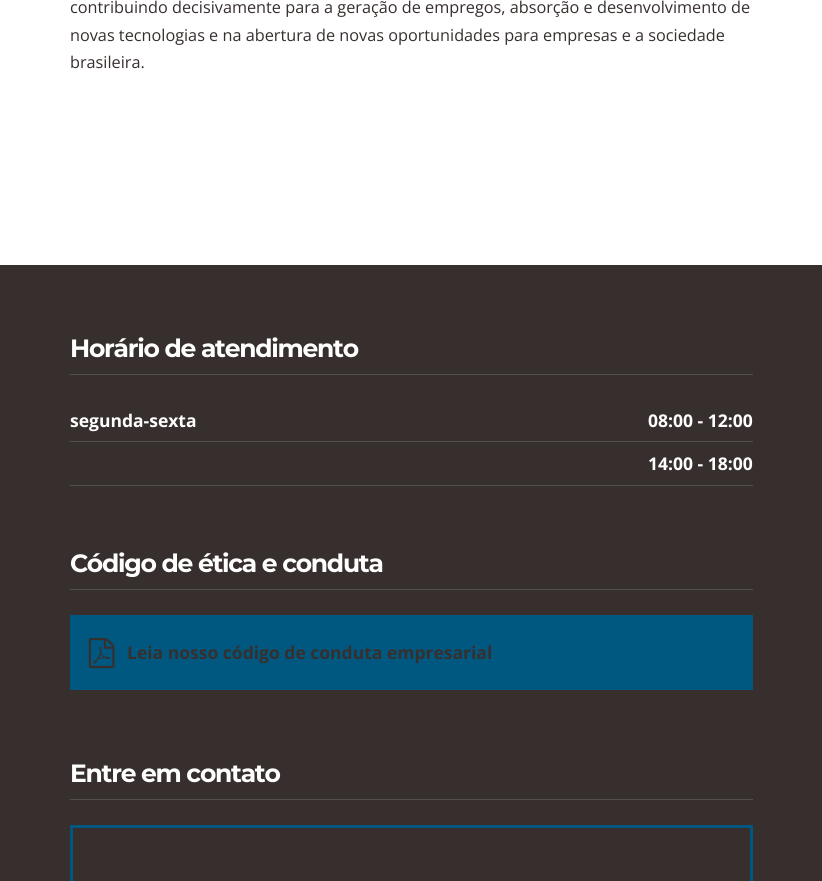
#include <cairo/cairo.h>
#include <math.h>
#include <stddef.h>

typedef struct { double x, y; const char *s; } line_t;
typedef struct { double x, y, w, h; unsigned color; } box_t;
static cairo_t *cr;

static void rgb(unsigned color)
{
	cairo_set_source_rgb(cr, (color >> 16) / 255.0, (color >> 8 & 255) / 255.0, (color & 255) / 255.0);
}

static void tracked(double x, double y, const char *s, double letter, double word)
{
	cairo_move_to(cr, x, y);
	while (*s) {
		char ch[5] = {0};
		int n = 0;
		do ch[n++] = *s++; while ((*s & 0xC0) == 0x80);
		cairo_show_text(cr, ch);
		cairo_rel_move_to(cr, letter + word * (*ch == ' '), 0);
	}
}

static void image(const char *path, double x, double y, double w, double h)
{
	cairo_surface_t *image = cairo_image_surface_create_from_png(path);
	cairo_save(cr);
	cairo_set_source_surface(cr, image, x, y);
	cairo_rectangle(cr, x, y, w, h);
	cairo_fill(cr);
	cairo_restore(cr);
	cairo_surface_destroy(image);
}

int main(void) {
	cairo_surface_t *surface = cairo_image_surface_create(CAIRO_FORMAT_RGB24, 822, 881);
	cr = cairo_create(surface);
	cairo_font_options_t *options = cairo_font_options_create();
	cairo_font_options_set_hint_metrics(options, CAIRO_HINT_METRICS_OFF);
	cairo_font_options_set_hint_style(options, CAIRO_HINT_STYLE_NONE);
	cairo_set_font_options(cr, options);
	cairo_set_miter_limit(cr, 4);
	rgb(0xffffff);
	cairo_paint(cr);
	{
		static const box_t items[] = {
			{0, 265, 822, 616, 0x362f2d},
			{70, 374, 683, 1, 0x544e4d},
			{70, 441, 683, 1, 0x544e4d},
			{70, 485, 683, 1, 0x544e4d},
			{70, 589, 683, 1, 0x544e4d},
			{70, 615, 683, 75, 0x005880},
		};
		for (size_t i = 0; i < sizeof items / sizeof *items; i++) {
			rgb(items[i].color);
			cairo_rectangle(cr, items[i].x, items[i].y, items[i].w, items[i].h);
			cairo_fill(cr);
		}
	}
	image("img/1.png", 88, 638, 27, 31);
	rgb(0x544e4d);
	cairo_rectangle(cr, 70, 799, 683, 1);
	cairo_fill(cr);
	cairo_rectangle(cr, 71.5, 826.5, 680, 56);
	rgb(0x005880);
	cairo_set_line_width(cr, 3);
	cairo_stroke(cr);
	cairo_select_font_face(cr, "Open Sans", CAIRO_FONT_SLANT_NORMAL, CAIRO_FONT_WEIGHT_NORMAL);
	cairo_set_font_size(cr, 16.25);
	rgb(0x362f2d);
	{
		static const line_t items[] = {
			{70, 13, "contribuindo decisivamente para a geração de empregos, absorção e desenvolvimento de"},
			{70, 41, "novas tecnologias e na abertura de novas oportunidades para empresas e a sociedade"},
			{70, 68, "brasileira."},
		};
		for (size_t i = 0; i < sizeof items / sizeof *items; i++) {
			cairo_move_to(cr, items[i].x, items[i].y);
			cairo_show_text(cr, items[i].s);
		}
	}
	cairo_select_font_face(cr, "Montserrat Thin", CAIRO_FONT_SLANT_NORMAL, CAIRO_FONT_WEIGHT_NORMAL);
	cairo_set_font_size(cr, 25);
	rgb(0xffffff);
	tracked(70, 357, "Horário de atendimento", -1.25, 0);
	cairo_select_font_face(cr, "Open Sans", CAIRO_FONT_SLANT_NORMAL, CAIRO_FONT_WEIGHT_BOLD);
	cairo_set_font_size(cr, 17.5);
	{
		static const line_t items[] = {
			{70, 427, "segunda-sexta"},
			{648, 427, "08:00 - 12:00"},
			{648, 470, "14:00 - 18:00"},
		};
		for (size_t i = 0; i < sizeof items / sizeof *items; i++) {
			cairo_move_to(cr, items[i].x, items[i].y);
			cairo_show_text(cr, items[i].s);
		}
	}
	cairo_select_font_face(cr, "Montserrat Thin", CAIRO_FONT_SLANT_NORMAL, CAIRO_FONT_WEIGHT_NORMAL);
	cairo_set_font_size(cr, 25);
	tracked(70, 572, "Código de ética e conduta", -1.25, 0);
	cairo_select_font_face(cr, "Open Sans", CAIRO_FONT_SLANT_NORMAL, CAIRO_FONT_WEIGHT_BOLD);
	cairo_set_font_size(cr, 17.5);
	rgb(0x362f2d);
	cairo_move_to(cr, 127, 659);
	cairo_show_text(cr, "Leia nosso código de conduta empresarial");
	cairo_select_font_face(cr, "Montserrat Thin", CAIRO_FONT_SLANT_NORMAL, CAIRO_FONT_WEIGHT_NORMAL);
	cairo_set_font_size(cr, 25);
	rgb(0xffffff);
	tracked(70, 782, "Entre em contato", -1.25, 0);
	cairo_surface_write_to_png(surface, "page.png");
	cairo_font_options_destroy(options);
	cairo_destroy(cr);
	cairo_surface_destroy(surface);
	return 0;
}
